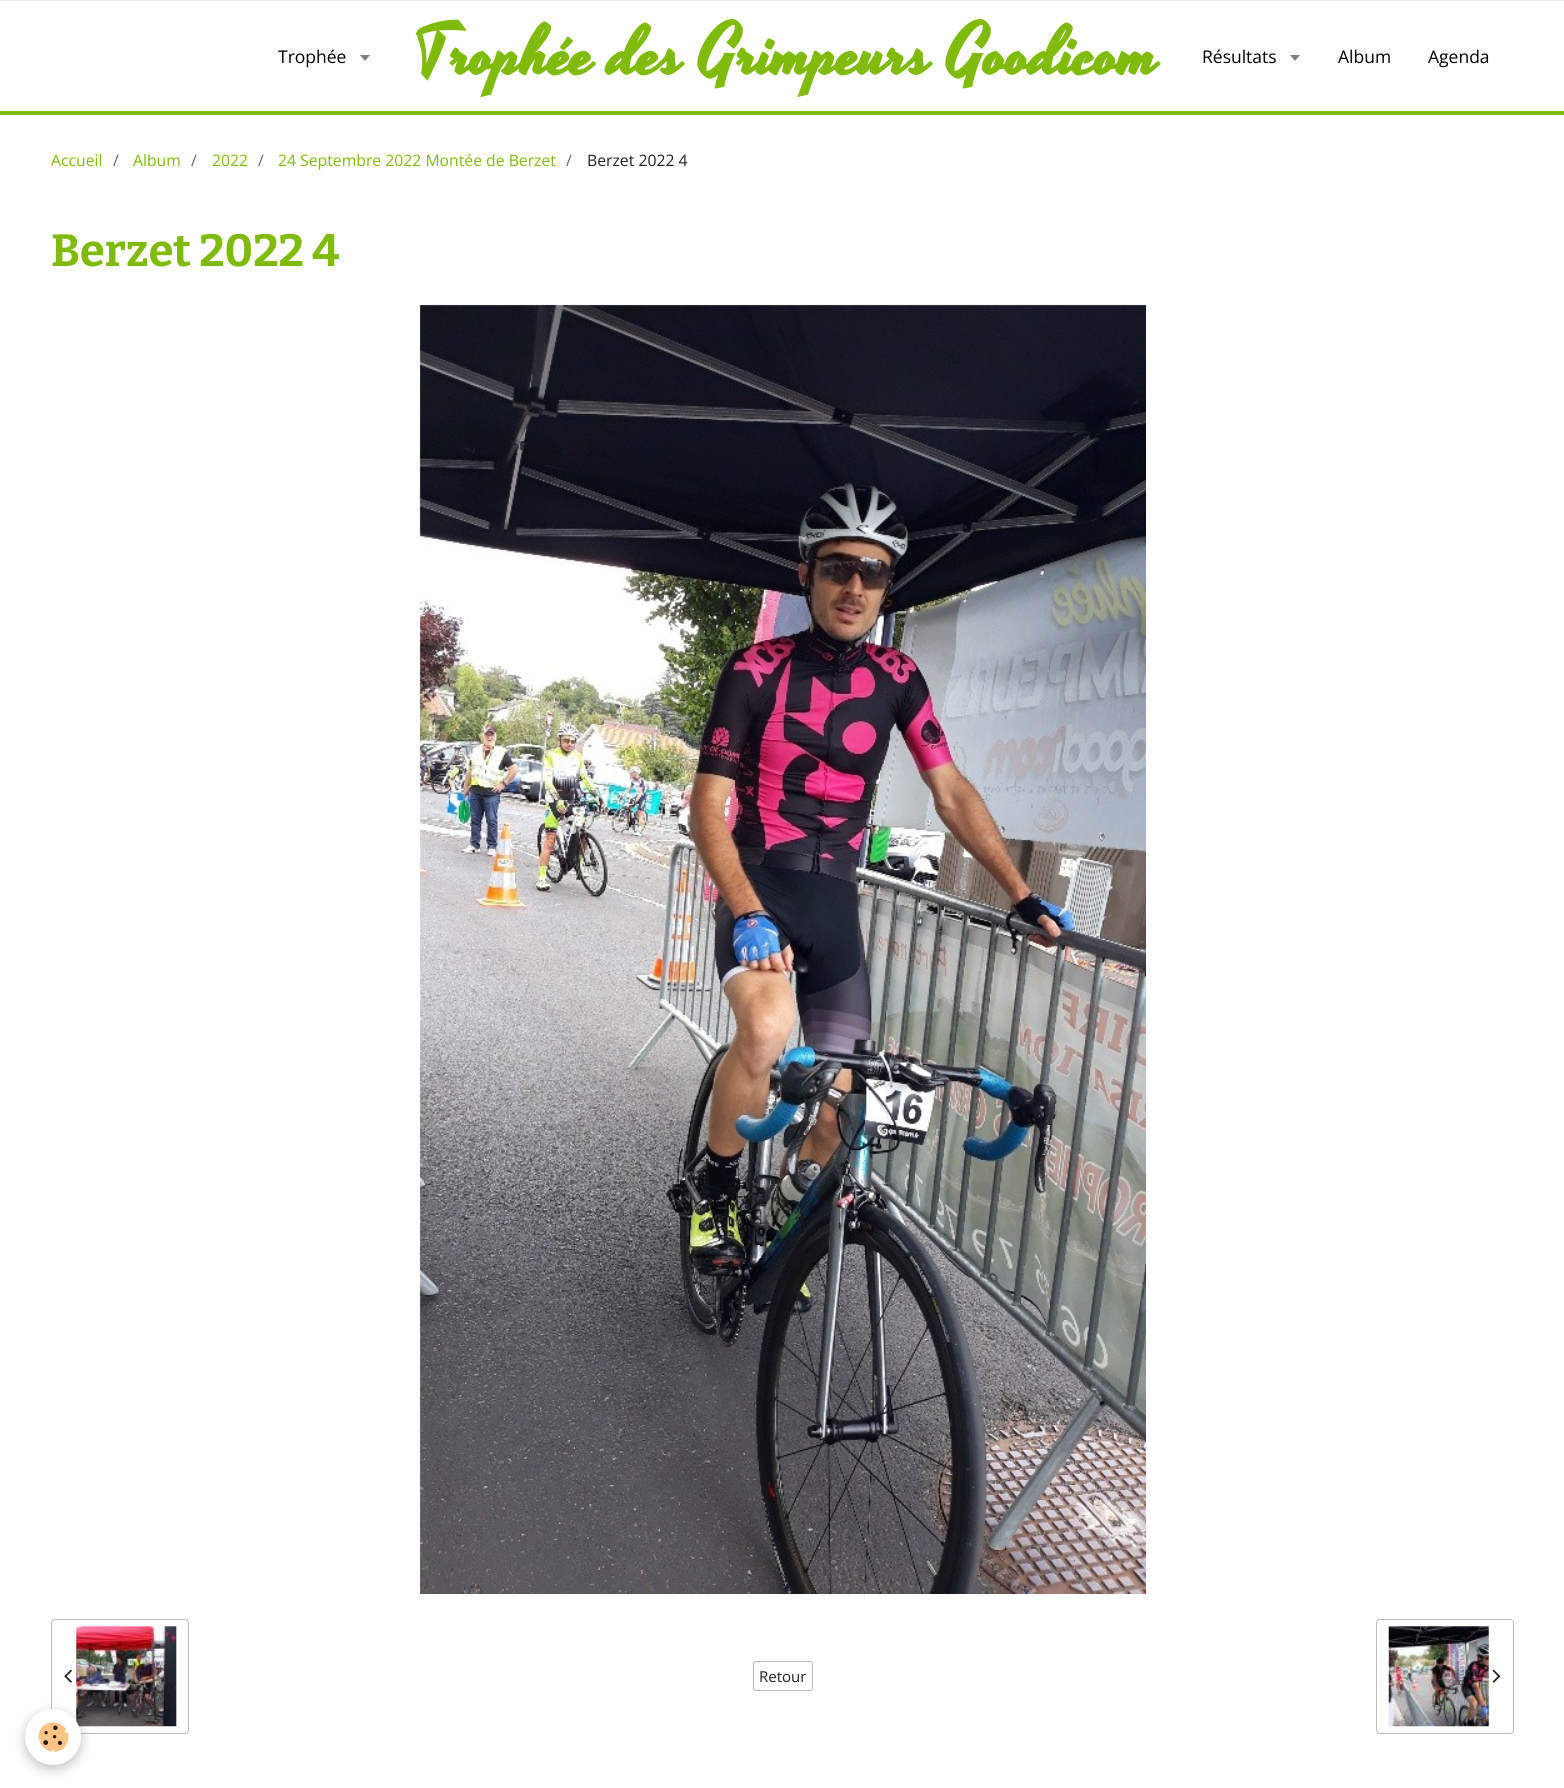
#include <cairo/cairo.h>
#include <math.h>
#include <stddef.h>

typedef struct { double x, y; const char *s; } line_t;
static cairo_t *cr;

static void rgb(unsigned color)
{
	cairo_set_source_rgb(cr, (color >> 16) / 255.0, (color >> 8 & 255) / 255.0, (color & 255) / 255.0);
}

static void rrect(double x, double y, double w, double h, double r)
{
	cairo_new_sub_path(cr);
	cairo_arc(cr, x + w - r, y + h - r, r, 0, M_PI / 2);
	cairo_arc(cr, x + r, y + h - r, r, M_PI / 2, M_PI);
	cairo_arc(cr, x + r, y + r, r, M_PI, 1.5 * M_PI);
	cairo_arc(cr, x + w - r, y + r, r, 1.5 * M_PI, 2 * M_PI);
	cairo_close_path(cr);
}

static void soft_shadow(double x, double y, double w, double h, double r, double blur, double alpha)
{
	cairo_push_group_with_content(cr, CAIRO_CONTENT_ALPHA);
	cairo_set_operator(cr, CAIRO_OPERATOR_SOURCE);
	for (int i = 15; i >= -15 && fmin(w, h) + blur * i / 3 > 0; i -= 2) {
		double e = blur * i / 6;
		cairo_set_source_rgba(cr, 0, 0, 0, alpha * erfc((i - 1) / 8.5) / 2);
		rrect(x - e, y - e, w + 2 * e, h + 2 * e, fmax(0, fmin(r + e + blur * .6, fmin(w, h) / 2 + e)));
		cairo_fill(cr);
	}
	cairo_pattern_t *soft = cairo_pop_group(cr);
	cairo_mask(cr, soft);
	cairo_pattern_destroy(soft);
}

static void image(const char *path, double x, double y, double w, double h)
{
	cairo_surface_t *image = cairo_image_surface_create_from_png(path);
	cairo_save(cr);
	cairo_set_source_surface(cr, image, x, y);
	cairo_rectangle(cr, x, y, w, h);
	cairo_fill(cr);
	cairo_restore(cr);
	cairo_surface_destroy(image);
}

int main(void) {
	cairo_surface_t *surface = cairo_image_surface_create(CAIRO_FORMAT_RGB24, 1564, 1788);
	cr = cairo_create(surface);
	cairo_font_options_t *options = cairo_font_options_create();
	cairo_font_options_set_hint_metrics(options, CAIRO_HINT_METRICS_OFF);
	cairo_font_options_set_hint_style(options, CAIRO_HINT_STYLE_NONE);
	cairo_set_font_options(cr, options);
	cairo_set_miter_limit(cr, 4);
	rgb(0xffffff);
	cairo_paint(cr);
	rgb(0x80bb0b);
	cairo_rectangle(cr, 0, 111, 1564, 4);
	cairo_fill(cr);
	rgb(0xeeeeee);
	cairo_rectangle(cr, 0, 0, 1564, 1);
	cairo_fill(cr);
	rgb(0x808080);
	cairo_new_path(cr);
	cairo_move_to(cr, 360, 55);
	cairo_line_to(cr, 370, 55);
	cairo_line_to(cr, 365, 61);
	cairo_close_path(cr);
	cairo_fill(cr);
	cairo_new_path(cr);
	cairo_move_to(cr, 1290, 55);
	cairo_line_to(cr, 1300, 55);
	cairo_line_to(cr, 1295, 61);
	cairo_close_path(cr);
	cairo_fill(cr);
	image("img/1.png", 419, 304, 727, 1290);
	image("img/2.png", 64, 1669, 8, 14);
	image("img/3.png", 76, 1626, 101, 101);
	rrect(51.5, 1619.5, 137, 114, 3.5);
	rgb(0xbdbdbd);
	cairo_set_line_width(cr, 1);
	cairo_stroke(cr);
	rrect(753.5, 1661.5, 59, 29, 2);
	cairo_stroke(cr);
	image("img/4.png", 1388, 1626, 101, 101);
	image("img/5.png", 1492, 1669, 9, 14);
	rrect(1376.5, 1619.5, 137, 114, 3.5);
	cairo_stroke(cr);
	rgb(0x000000);
	soft_shadow(25, 1713, 56, 56, 28, 6, 0.24);
	rgb(0xffffff);
	cairo_arc(cr, 53, 1737, 28, 0, 2 * M_PI);
	cairo_fill(cr);
	image("img/6.png", 38, 1722, 31, 30);
	cairo_select_font_face(cr, "Open Sans", CAIRO_FONT_SLANT_NORMAL, CAIRO_FONT_WEIGHT_NORMAL);
	cairo_set_font_size(cr, 17.5);
	rgb(0x000000);
	cairo_move_to(cr, 278, 63);
	cairo_show_text(cr, "Trophée");
	cairo_select_font_face(cr, "Yesteryear", CAIRO_FONT_SLANT_NORMAL, CAIRO_FONT_WEIGHT_BOLD);
	cairo_set_font_size(cr, 68.25);
	rgb(0x80bb0b);
	cairo_move_to(cr, 413, 73);
	cairo_show_text(cr, "Trophée des Grimpeurs Goodicom");
	cairo_select_font_face(cr, "Open Sans", CAIRO_FONT_SLANT_NORMAL, CAIRO_FONT_WEIGHT_NORMAL);
	cairo_set_font_size(cr, 17.5);
	rgb(0x000000);
	{
		static const line_t items[] = {
			{1202, 63, "Résultats"},
			{1338, 63, "Album"},
			{1428, 63, "Agenda"},
		};
		for (size_t i = 0; i < sizeof items / sizeof *items; i++) {
			cairo_move_to(cr, items[i].x, items[i].y);
			cairo_show_text(cr, items[i].s);
		}
	}
	cairo_set_font_size(cr, 15.75);
	rgb(0x80bb0b);
	cairo_move_to(cr, 51, 166);
	cairo_show_text(cr, "Accueil");
	rgb(0x646464);
	cairo_move_to(cr, 113, 166);
	cairo_show_text(cr, "/");
	rgb(0x80bb0b);
	cairo_move_to(cr, 133, 166);
	cairo_show_text(cr, "Album");
	rgb(0x646464);
	cairo_move_to(cr, 191, 166);
	cairo_show_text(cr, "/");
	rgb(0x80bb0b);
	cairo_move_to(cr, 212, 166);
	cairo_show_text(cr, "2022");
	rgb(0x646464);
	cairo_move_to(cr, 258, 166);
	cairo_show_text(cr, "/");
	rgb(0x80bb0b);
	cairo_move_to(cr, 278, 166);
	cairo_show_text(cr, "24 Septembre 2022 Montée de Berzet");
	rgb(0x646464);
	cairo_move_to(cr, 566, 166);
	cairo_show_text(cr, "/");
	rgb(0x222222);
	cairo_move_to(cr, 587, 166);
	cairo_show_text(cr, "Berzet 2022 4");
	cairo_select_font_face(cr, "Bitter", CAIRO_FONT_SLANT_NORMAL, CAIRO_FONT_WEIGHT_BOLD);
	cairo_set_font_size(cr, 45);
	rgb(0x80bb0b);
	cairo_move_to(cr, 51, 266);
	cairo_show_text(cr, "Berzet 2022 4");
	cairo_select_font_face(cr, "Open Sans", CAIRO_FONT_SLANT_NORMAL, CAIRO_FONT_WEIGHT_NORMAL);
	cairo_set_font_size(cr, 15);
	rgb(0x222222);
	cairo_move_to(cr, 759, 1682);
	cairo_show_text(cr, "Retour");
	cairo_surface_write_to_png(surface, "page.png");
	cairo_font_options_destroy(options);
	cairo_destroy(cr);
	cairo_surface_destroy(surface);
	return 0;
}
